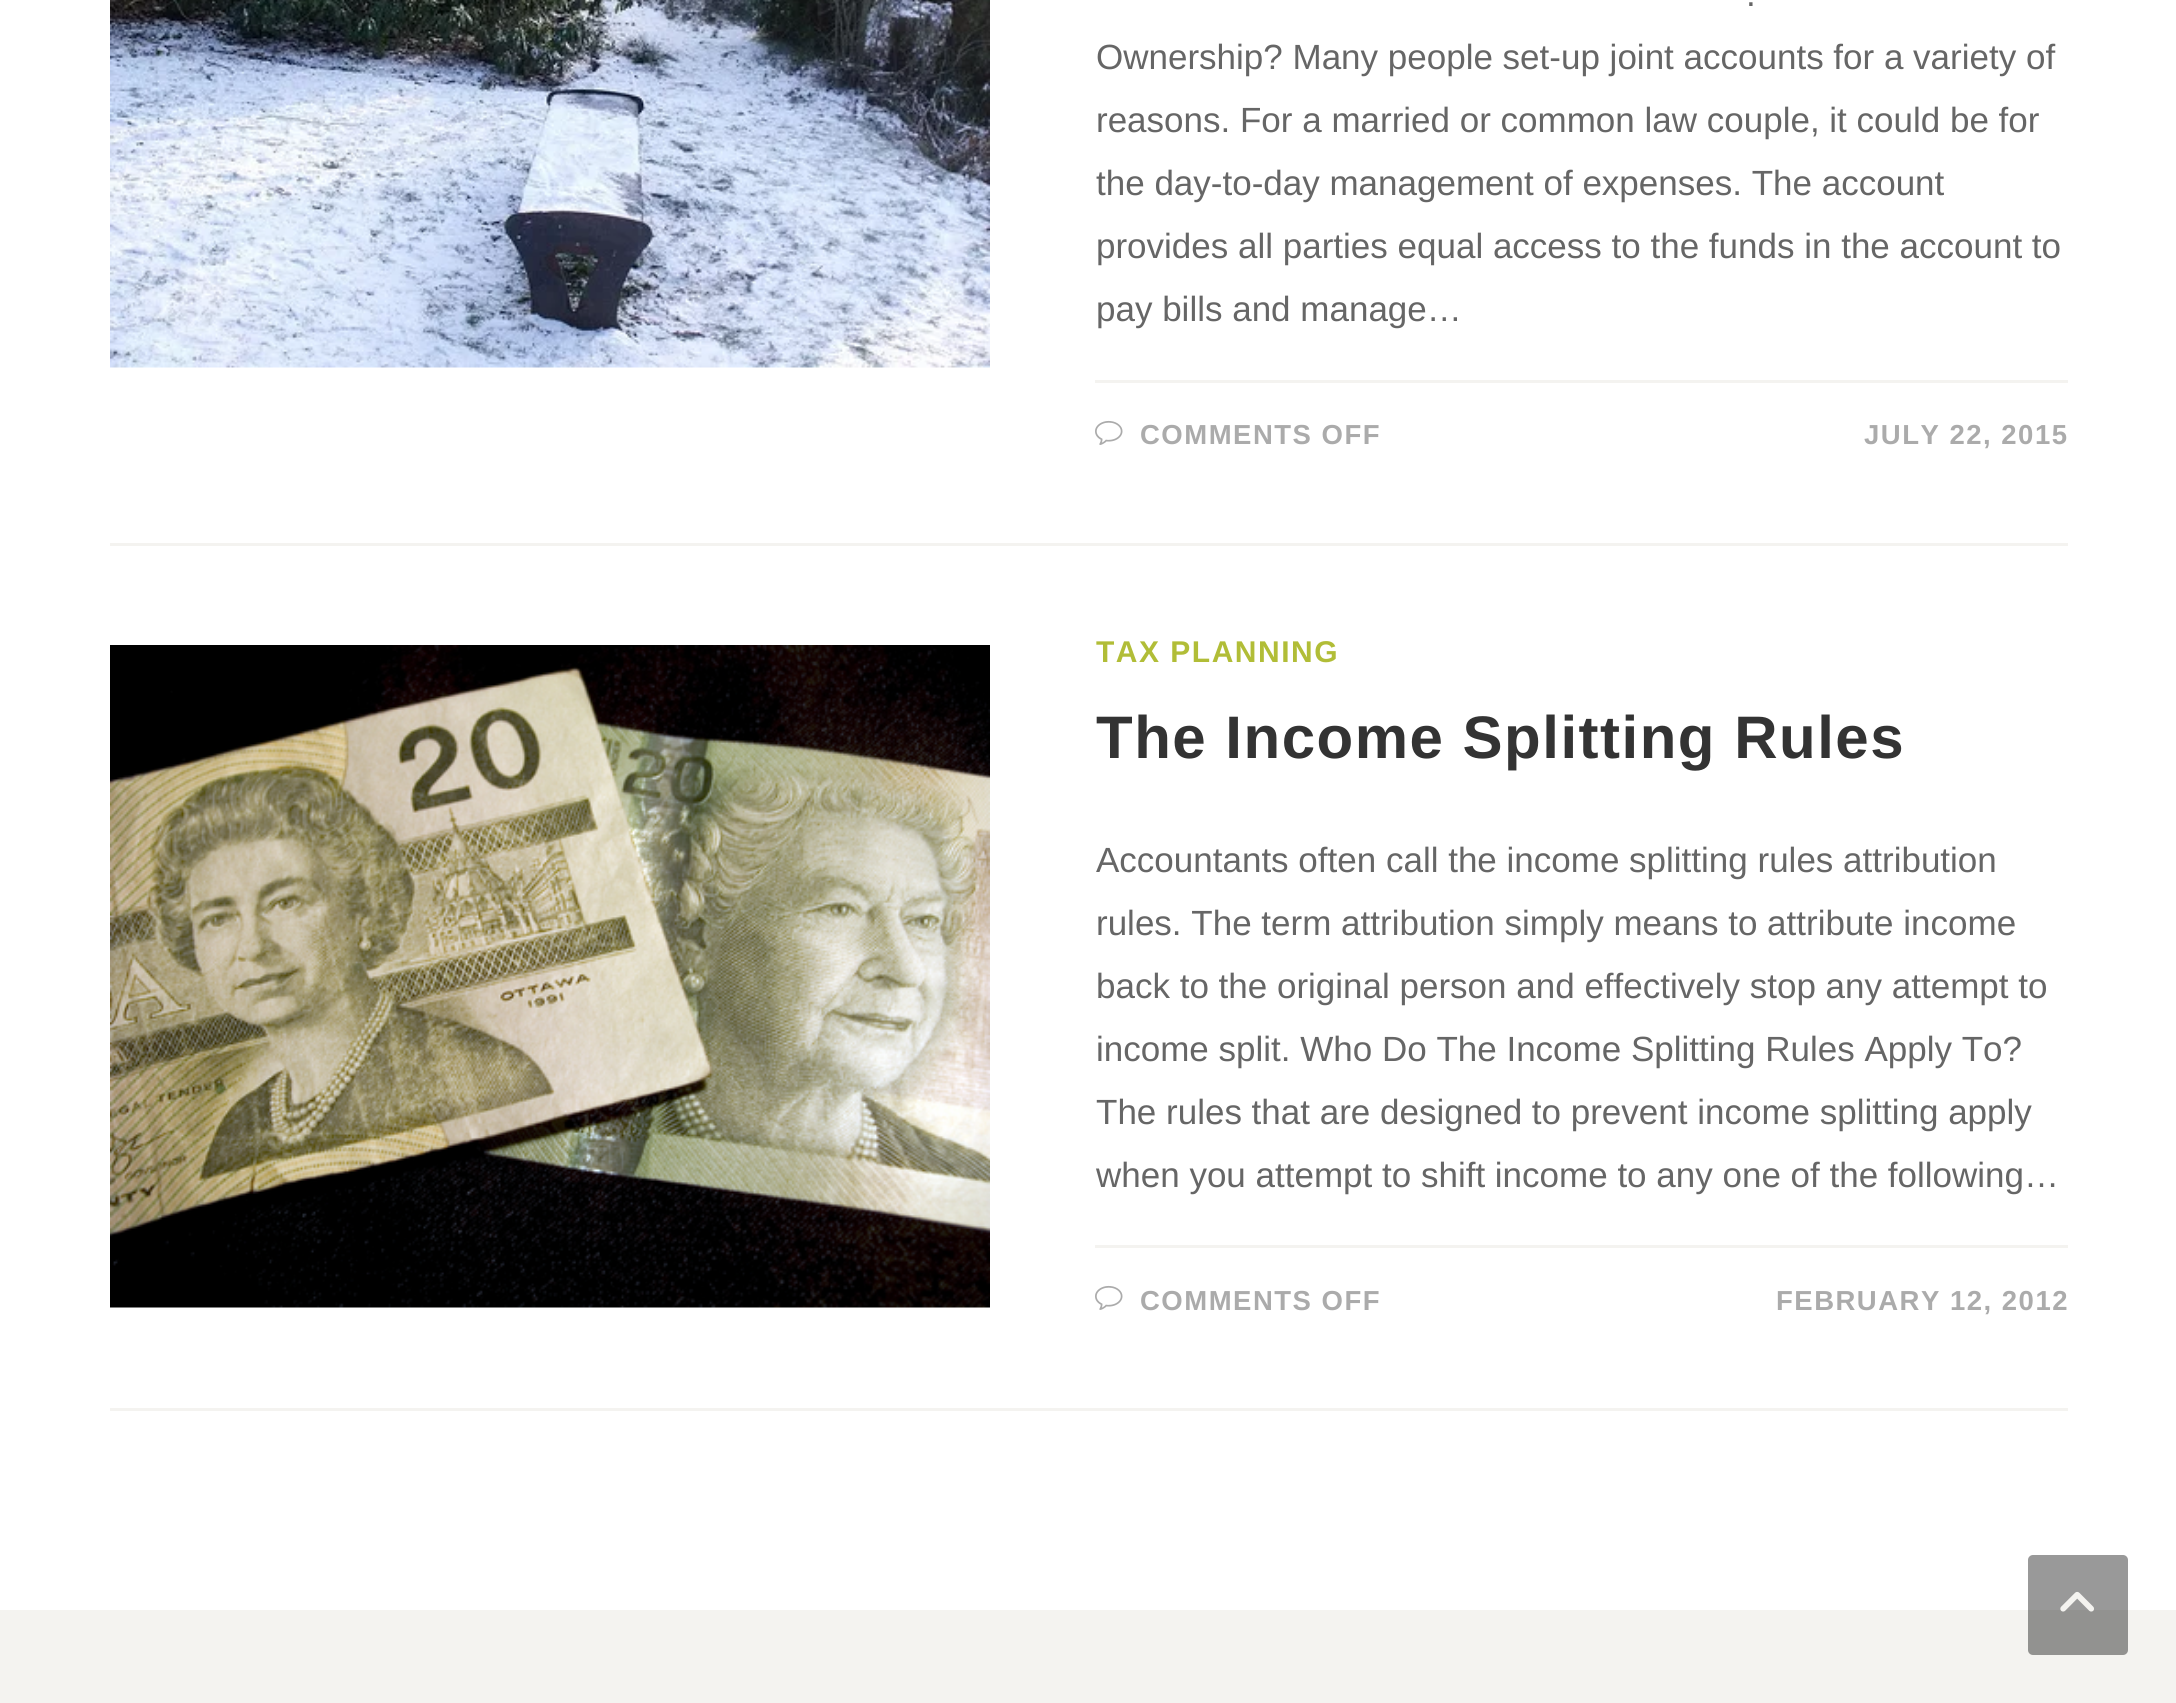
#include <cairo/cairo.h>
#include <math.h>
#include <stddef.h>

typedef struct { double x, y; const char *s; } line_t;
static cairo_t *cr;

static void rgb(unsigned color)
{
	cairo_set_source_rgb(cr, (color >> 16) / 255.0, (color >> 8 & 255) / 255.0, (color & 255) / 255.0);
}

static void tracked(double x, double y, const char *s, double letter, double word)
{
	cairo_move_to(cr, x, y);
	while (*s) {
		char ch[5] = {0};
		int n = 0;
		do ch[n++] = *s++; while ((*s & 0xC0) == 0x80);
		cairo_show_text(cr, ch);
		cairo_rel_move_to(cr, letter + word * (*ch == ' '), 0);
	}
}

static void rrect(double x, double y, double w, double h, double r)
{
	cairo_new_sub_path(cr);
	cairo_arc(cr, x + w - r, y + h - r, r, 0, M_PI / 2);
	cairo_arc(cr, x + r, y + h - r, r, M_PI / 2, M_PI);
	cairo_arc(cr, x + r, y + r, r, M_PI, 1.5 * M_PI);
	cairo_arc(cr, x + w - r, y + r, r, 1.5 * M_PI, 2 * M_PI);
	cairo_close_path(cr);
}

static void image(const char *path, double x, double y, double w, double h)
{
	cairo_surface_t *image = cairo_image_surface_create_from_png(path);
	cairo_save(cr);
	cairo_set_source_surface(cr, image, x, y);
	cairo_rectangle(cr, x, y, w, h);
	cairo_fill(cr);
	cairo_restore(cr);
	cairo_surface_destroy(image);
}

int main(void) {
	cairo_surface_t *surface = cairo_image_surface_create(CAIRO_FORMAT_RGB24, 2176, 1703);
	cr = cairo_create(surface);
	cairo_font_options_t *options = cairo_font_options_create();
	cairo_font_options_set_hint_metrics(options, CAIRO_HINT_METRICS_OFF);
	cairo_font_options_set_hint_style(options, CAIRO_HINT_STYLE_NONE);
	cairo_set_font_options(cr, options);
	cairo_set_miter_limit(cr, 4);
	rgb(0xffffff);
	cairo_paint(cr);
	rgb(0xf4f3f0);
	cairo_rectangle(cr, 110, 543, 1958, 3);
	cairo_fill(cr);
	image("img/1.png", 110, 0, 880, 368);
	cairo_rectangle(cr, 1095, 380, 973, 3);
	cairo_fill(cr);
	image("img/2.png", 1095, 420, 28, 25);
	cairo_rectangle(cr, 110, 1408, 1958, 3);
	cairo_fill(cr);
	image("img/3.png", 110, 645, 880, 663);
	cairo_rectangle(cr, 1095, 1245, 973, 3);
	cairo_fill(cr);
	image("img/2.png", 1095, 1285, 28, 25);
	cairo_rectangle(cr, 0, 1610, 2176, 93);
	cairo_fill(cr);
	cairo_set_source_rgba(cr, 0, 0, 0, 0.4);
	rrect(2028, 1555, 100, 100, 5);
	cairo_fill(cr);
	image("img/4.png", 2060, 1591, 34, 21);
	cairo_select_font_face(cr, "Liberation Sans", CAIRO_FONT_SLANT_NORMAL, CAIRO_FONT_WEIGHT_NORMAL);
	cairo_set_font_size(cr, 35);
	rgb(0x666666);
	{
		static const line_t items[] = {
			{1746, 6, "."},
			{1096, 69, "Ownership? Many people set-up joint accounts for a variety of"},
			{1096, 132, "reasons. For a married or common law couple, it could be for"},
			{1096, 195, "the day-to-day management of expenses. The account"},
			{1096, 258, "provides all parties equal access to the funds in the account to"},
			{1096, 321, "pay bills and manage…"},
		};
		for (size_t i = 0; i < sizeof items / sizeof *items; i++) {
			cairo_move_to(cr, items[i].x, items[i].y);
			cairo_show_text(cr, items[i].s);
		}
	}
	cairo_select_font_face(cr, "Liberation Sans", CAIRO_FONT_SLANT_NORMAL, CAIRO_FONT_WEIGHT_BOLD);
	cairo_set_font_size(cr, 27.5);
	rgb(0xababab);
	tracked(1140, 444, "COMMENTS OFF", 1.5, 0);
	tracked(1864, 444, "JULY 22, 2015", 1.5, 0);
	cairo_set_font_size(cr, 30);
	rgb(0xb1bd37);
	tracked(1096, 662, "TAX PLANNING", 1.5, 0);
	cairo_set_font_size(cr, 60);
	rgb(0x333333);
	tracked(1096, 758, "The Income Splitting Rules", 1.5, 0);
	cairo_select_font_face(cr, "Liberation Sans", CAIRO_FONT_SLANT_NORMAL, CAIRO_FONT_WEIGHT_NORMAL);
	cairo_set_font_size(cr, 35);
	rgb(0x666666);
	{
		static const line_t items[] = {
			{1096, 872, "Accountants often call the income splitting rules attribution"},
			{1096, 935, "rules. The term attribution simply means to attribute income"},
			{1096, 998, "back to the original person and effectively stop any attempt to"},
			{1096, 1061, "income split. Who Do The Income Splitting Rules Apply To?"},
			{1096, 1124, "The rules that are designed to prevent income splitting apply"},
			{1096, 1187, "when you attempt to shift income to any one of the following…"},
		};
		for (size_t i = 0; i < sizeof items / sizeof *items; i++) {
			cairo_move_to(cr, items[i].x, items[i].y);
			cairo_show_text(cr, items[i].s);
		}
	}
	cairo_select_font_face(cr, "Liberation Sans", CAIRO_FONT_SLANT_NORMAL, CAIRO_FONT_WEIGHT_BOLD);
	cairo_set_font_size(cr, 27.5);
	rgb(0xababab);
	tracked(1140, 1310, "COMMENTS OFF", 1.5, 0);
	tracked(1776, 1310, "FEBRUARY 12, 2012", 1.5, 0);
	cairo_surface_write_to_png(surface, "page.png");
	cairo_font_options_destroy(options);
	cairo_destroy(cr);
	cairo_surface_destroy(surface);
	return 0;
}
